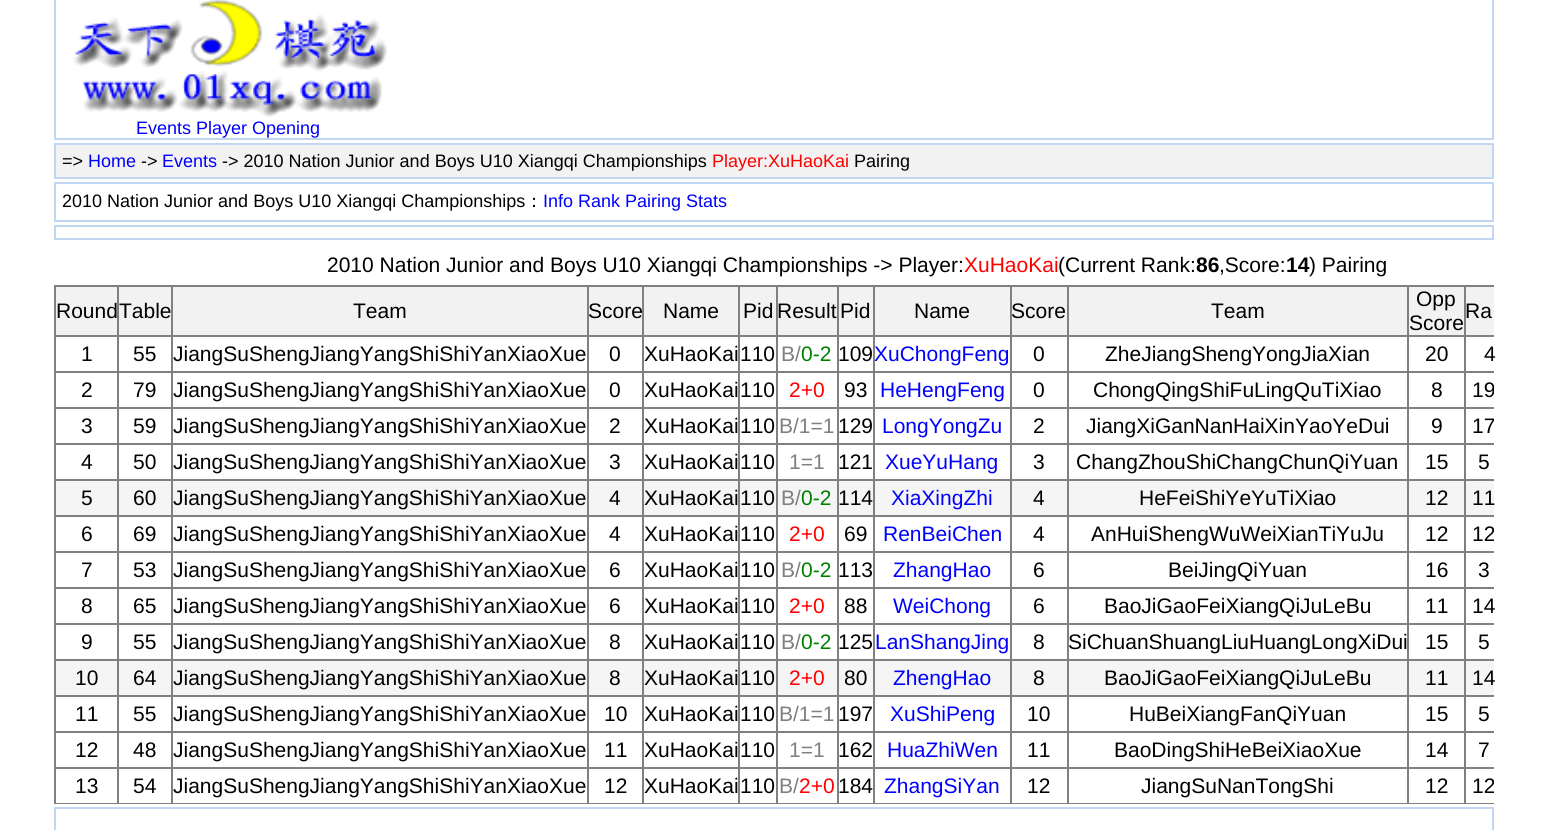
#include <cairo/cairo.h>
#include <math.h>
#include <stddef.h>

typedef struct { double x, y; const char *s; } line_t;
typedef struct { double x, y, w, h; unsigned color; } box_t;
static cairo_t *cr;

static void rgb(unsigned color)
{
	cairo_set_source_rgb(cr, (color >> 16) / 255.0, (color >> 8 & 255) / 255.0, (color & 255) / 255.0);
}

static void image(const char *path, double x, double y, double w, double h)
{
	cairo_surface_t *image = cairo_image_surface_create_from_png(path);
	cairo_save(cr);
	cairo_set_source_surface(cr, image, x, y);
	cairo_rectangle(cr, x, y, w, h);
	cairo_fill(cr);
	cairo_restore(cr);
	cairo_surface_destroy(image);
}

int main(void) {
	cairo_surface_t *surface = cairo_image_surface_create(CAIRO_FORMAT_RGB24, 1547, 830);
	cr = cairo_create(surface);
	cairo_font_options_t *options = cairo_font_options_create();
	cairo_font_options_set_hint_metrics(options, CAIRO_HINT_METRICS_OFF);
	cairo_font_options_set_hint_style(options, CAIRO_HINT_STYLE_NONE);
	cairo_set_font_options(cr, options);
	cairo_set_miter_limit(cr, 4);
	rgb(0xffffff);
	cairo_paint(cr);
	cairo_rectangle(cr, 55, -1, 1438, 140);
	rgb(0xc1d6f0);
	cairo_stroke(cr);
	image("img/1.png", 73, 0, 314, 117);
	rgb(0xf2f2f2);
	cairo_rectangle(cr, 55, 144, 1438, 34);
	cairo_fill_preserve(cr);
	rgb(0xc1d6f0);
	cairo_stroke(cr);
	cairo_rectangle(cr, 55, 183, 1438, 38);
	cairo_stroke(cr);
	cairo_rectangle(cr, 55, 226, 1438, 13);
	cairo_stroke(cr);
	{
		static const box_t items[] = {
			{54, 285, 1440, 2, 0x808080},
			{54, 803, 1440, 1, 0x808080},
			{54, 285, 2, 519, 0x808080},
			{56, 287, 1438, 48, 0xf2f2f2},
			{1464, 335, 30, 2, 0x808080},
			{1464, 371, 30, 2, 0x808080},
			{1464, 407, 30, 2, 0x808080},
			{1464, 443, 30, 2, 0x808080},
			{1464, 479, 30, 2, 0x808080},
			{56, 481, 1438, 34, 0xf5f5f5},
			{1464, 515, 30, 2, 0x808080},
			{1464, 551, 30, 2, 0x808080},
			{1464, 587, 30, 2, 0x808080},
			{1464, 623, 30, 2, 0x808080},
			{1464, 659, 30, 2, 0x808080},
			{56, 661, 1438, 34, 0xf5f5f5},
			{1464, 695, 30, 2, 0x808080},
			{1464, 731, 30, 2, 0x808080},
			{1464, 767, 30, 2, 0x808080},
			{1464, 767, 2, 37, 0x808080},
			{1407, 767, 59, 2, 0x808080},
			{1464, 731, 2, 37, 0x808080},
			{1407, 731, 59, 2, 0x808080},
			{1464, 695, 2, 37, 0x808080},
			{1407, 695, 59, 2, 0x808080},
			{1464, 659, 2, 37, 0x808080},
			{1407, 659, 59, 2, 0x808080},
			{1464, 623, 2, 37, 0x808080},
			{1407, 623, 59, 2, 0x808080},
			{1464, 587, 2, 37, 0x808080},
			{1407, 587, 59, 2, 0x808080},
			{1464, 551, 2, 37, 0x808080},
			{1407, 551, 59, 2, 0x808080},
			{1464, 515, 2, 37, 0x808080},
			{1407, 515, 59, 2, 0x808080},
			{1464, 479, 2, 37, 0x808080},
			{1407, 479, 59, 2, 0x808080},
			{1464, 443, 2, 37, 0x808080},
			{1407, 443, 59, 2, 0x808080},
			{1464, 407, 2, 37, 0x808080},
			{1407, 407, 59, 2, 0x808080},
			{1464, 371, 2, 37, 0x808080},
			{1407, 371, 59, 2, 0x808080},
			{1464, 335, 2, 37, 0x808080},
			{1407, 335, 59, 2, 0x808080},
			{1407, 767, 2, 37, 0x808080},
			{1067, 767, 342, 2, 0x808080},
			{1407, 731, 2, 37, 0x808080},
			{1067, 731, 342, 2, 0x808080},
			{1407, 695, 2, 37, 0x808080},
			{1067, 695, 342, 2, 0x808080},
			{1407, 659, 2, 37, 0x808080},
			{1067, 659, 342, 2, 0x808080},
			{1407, 623, 2, 37, 0x808080},
			{1067, 623, 342, 2, 0x808080},
			{1407, 587, 2, 37, 0x808080},
			{1067, 587, 342, 2, 0x808080},
			{1407, 551, 2, 37, 0x808080},
			{1067, 551, 342, 2, 0x808080},
			{1407, 515, 2, 37, 0x808080},
			{1067, 515, 342, 2, 0x808080},
			{1407, 479, 2, 37, 0x808080},
			{1067, 479, 342, 2, 0x808080},
			{1407, 443, 2, 37, 0x808080},
			{1067, 443, 342, 2, 0x808080},
			{1407, 407, 2, 37, 0x808080},
			{1067, 407, 342, 2, 0x808080},
			{1407, 371, 2, 37, 0x808080},
			{1067, 371, 342, 2, 0x808080},
			{1407, 335, 2, 37, 0x808080},
			{1067, 335, 342, 2, 0x808080},
			{1067, 767, 2, 37, 0x808080},
			{1010, 767, 58, 2, 0x808080},
			{1067, 731, 2, 37, 0x808080},
			{1010, 731, 58, 2, 0x808080},
			{1067, 695, 2, 37, 0x808080},
			{1010, 695, 58, 2, 0x808080},
			{1067, 659, 2, 37, 0x808080},
			{1010, 659, 58, 2, 0x808080},
			{1067, 623, 2, 37, 0x808080},
			{1010, 623, 58, 2, 0x808080},
			{1067, 587, 2, 37, 0x808080},
			{1010, 587, 58, 2, 0x808080},
			{1067, 551, 2, 37, 0x808080},
			{1010, 551, 58, 2, 0x808080},
			{1067, 515, 2, 37, 0x808080},
			{1010, 515, 58, 2, 0x808080},
			{1067, 479, 2, 37, 0x808080},
			{1010, 479, 58, 2, 0x808080},
			{1067, 443, 2, 37, 0x808080},
			{1010, 443, 58, 2, 0x808080},
			{1067, 407, 2, 37, 0x808080},
			{1010, 407, 58, 2, 0x808080},
			{1067, 371, 2, 37, 0x808080},
			{1010, 371, 58, 2, 0x808080},
			{1067, 335, 2, 37, 0x808080},
			{1010, 335, 58, 2, 0x808080},
			{1010, 767, 2, 37, 0x808080},
			{873, 767, 138, 2, 0x808080},
			{1010, 731, 2, 37, 0x808080},
			{873, 731, 138, 2, 0x808080},
			{1010, 695, 2, 37, 0x808080},
			{873, 695, 138, 2, 0x808080},
			{1010, 659, 2, 37, 0x808080},
			{873, 659, 138, 2, 0x808080},
			{1010, 623, 2, 37, 0x808080},
			{873, 623, 138, 2, 0x808080},
			{1010, 587, 2, 37, 0x808080},
			{873, 587, 138, 2, 0x808080},
			{1010, 551, 2, 37, 0x808080},
			{873, 551, 138, 2, 0x808080},
			{1010, 515, 2, 37, 0x808080},
			{873, 515, 138, 2, 0x808080},
			{1010, 479, 2, 37, 0x808080},
			{873, 479, 138, 2, 0x808080},
			{1010, 443, 2, 37, 0x808080},
			{873, 443, 138, 2, 0x808080},
			{1010, 407, 2, 37, 0x808080},
			{873, 407, 138, 2, 0x808080},
			{1010, 371, 2, 37, 0x808080},
			{873, 371, 138, 2, 0x808080},
			{1010, 335, 2, 37, 0x808080},
			{873, 335, 138, 2, 0x808080},
			{873, 767, 2, 37, 0x808080},
			{837, 767, 38, 2, 0x808080},
			{873, 731, 2, 37, 0x808080},
			{837, 731, 38, 2, 0x808080},
			{873, 695, 2, 37, 0x808080},
			{837, 695, 38, 2, 0x808080},
			{873, 659, 2, 37, 0x808080},
			{837, 659, 38, 2, 0x808080},
			{873, 623, 2, 37, 0x808080},
			{837, 623, 38, 2, 0x808080},
			{873, 587, 2, 37, 0x808080},
			{837, 587, 38, 2, 0x808080},
			{873, 551, 2, 37, 0x808080},
			{837, 551, 38, 2, 0x808080},
			{873, 515, 2, 37, 0x808080},
			{837, 515, 38, 2, 0x808080},
			{873, 479, 2, 37, 0x808080},
			{837, 479, 38, 2, 0x808080},
			{873, 443, 2, 37, 0x808080},
			{837, 443, 38, 2, 0x808080},
			{873, 407, 2, 37, 0x808080},
			{837, 407, 38, 2, 0x808080},
			{873, 371, 2, 37, 0x808080},
			{837, 371, 38, 2, 0x808080},
			{873, 335, 2, 37, 0x808080},
			{837, 335, 38, 2, 0x808080},
			{837, 767, 2, 37, 0x808080},
			{776, 767, 63, 2, 0x808080},
			{837, 731, 2, 37, 0x808080},
			{776, 731, 63, 2, 0x808080},
			{837, 695, 2, 37, 0x808080},
			{776, 695, 63, 2, 0x808080},
			{837, 659, 2, 37, 0x808080},
			{776, 659, 63, 2, 0x808080},
			{837, 623, 2, 37, 0x808080},
			{776, 623, 63, 2, 0x808080},
			{837, 587, 2, 37, 0x808080},
			{776, 587, 63, 2, 0x808080},
			{837, 551, 2, 37, 0x808080},
			{776, 551, 63, 2, 0x808080},
			{837, 515, 2, 37, 0x808080},
			{776, 515, 63, 2, 0x808080},
			{837, 479, 2, 37, 0x808080},
			{776, 479, 63, 2, 0x808080},
			{837, 443, 2, 37, 0x808080},
			{776, 443, 63, 2, 0x808080},
			{837, 407, 2, 37, 0x808080},
			{776, 407, 63, 2, 0x808080},
			{837, 371, 2, 37, 0x808080},
			{776, 371, 63, 2, 0x808080},
			{837, 335, 2, 37, 0x808080},
			{776, 335, 63, 2, 0x808080},
			{776, 767, 2, 37, 0x808080},
			{738, 767, 39, 2, 0x808080},
			{776, 731, 2, 37, 0x808080},
			{738, 731, 39, 2, 0x808080},
			{776, 695, 2, 37, 0x808080},
			{738, 695, 39, 2, 0x808080},
			{776, 659, 2, 37, 0x808080},
			{738, 659, 39, 2, 0x808080},
			{776, 623, 2, 37, 0x808080},
			{738, 623, 39, 2, 0x808080},
			{776, 587, 2, 37, 0x808080},
			{738, 587, 39, 2, 0x808080},
			{776, 551, 2, 37, 0x808080},
			{738, 551, 39, 2, 0x808080},
			{776, 515, 2, 37, 0x808080},
			{738, 515, 39, 2, 0x808080},
			{776, 479, 2, 37, 0x808080},
			{738, 479, 39, 2, 0x808080},
			{776, 443, 2, 37, 0x808080},
			{738, 443, 39, 2, 0x808080},
			{776, 407, 2, 37, 0x808080},
			{738, 407, 39, 2, 0x808080},
			{776, 371, 2, 37, 0x808080},
			{738, 371, 39, 2, 0x808080},
			{776, 335, 2, 37, 0x808080},
			{738, 335, 39, 2, 0x808080},
			{738, 767, 2, 37, 0x808080},
			{642, 767, 98, 2, 0x808080},
			{738, 731, 2, 37, 0x808080},
			{642, 731, 98, 2, 0x808080},
			{738, 695, 2, 37, 0x808080},
			{642, 695, 98, 2, 0x808080},
			{738, 659, 2, 37, 0x808080},
			{642, 659, 98, 2, 0x808080},
			{738, 623, 2, 37, 0x808080},
			{642, 623, 98, 2, 0x808080},
			{738, 587, 2, 37, 0x808080},
			{642, 587, 98, 2, 0x808080},
			{738, 551, 2, 37, 0x808080},
			{642, 551, 98, 2, 0x808080},
			{738, 515, 2, 37, 0x808080},
			{642, 515, 98, 2, 0x808080},
			{738, 479, 2, 37, 0x808080},
			{642, 479, 98, 2, 0x808080},
			{738, 443, 2, 37, 0x808080},
			{642, 443, 98, 2, 0x808080},
			{738, 407, 2, 37, 0x808080},
			{642, 407, 98, 2, 0x808080},
			{738, 371, 2, 37, 0x808080},
			{642, 371, 98, 2, 0x808080},
			{738, 335, 2, 37, 0x808080},
			{642, 335, 98, 2, 0x808080},
			{642, 767, 2, 37, 0x808080},
			{587, 767, 57, 2, 0x808080},
			{642, 731, 2, 37, 0x808080},
			{587, 731, 57, 2, 0x808080},
			{642, 695, 2, 37, 0x808080},
			{587, 695, 57, 2, 0x808080},
			{642, 659, 2, 37, 0x808080},
			{587, 659, 57, 2, 0x808080},
			{642, 623, 2, 37, 0x808080},
			{587, 623, 57, 2, 0x808080},
			{642, 587, 2, 37, 0x808080},
			{587, 587, 57, 2, 0x808080},
			{642, 551, 2, 37, 0x808080},
			{587, 551, 57, 2, 0x808080},
			{642, 515, 2, 37, 0x808080},
			{587, 515, 57, 2, 0x808080},
			{642, 479, 2, 37, 0x808080},
			{587, 479, 57, 2, 0x808080},
			{642, 443, 2, 37, 0x808080},
			{587, 443, 57, 2, 0x808080},
			{642, 407, 2, 37, 0x808080},
			{587, 407, 57, 2, 0x808080},
			{642, 371, 2, 37, 0x808080},
			{587, 371, 57, 2, 0x808080},
			{642, 335, 2, 37, 0x808080},
			{587, 335, 57, 2, 0x808080},
			{587, 767, 2, 37, 0x808080},
			{171, 767, 417, 2, 0x808080},
			{587, 731, 2, 37, 0x808080},
			{171, 731, 417, 2, 0x808080},
			{587, 695, 2, 37, 0x808080},
			{171, 695, 417, 2, 0x808080},
			{587, 659, 2, 37, 0x808080},
			{171, 659, 417, 2, 0x808080},
			{587, 623, 2, 37, 0x808080},
			{171, 623, 417, 2, 0x808080},
			{587, 587, 2, 37, 0x808080},
			{171, 587, 417, 2, 0x808080},
			{587, 551, 2, 37, 0x808080},
			{171, 551, 417, 2, 0x808080},
			{587, 515, 2, 37, 0x808080},
			{171, 515, 417, 2, 0x808080},
			{587, 479, 2, 37, 0x808080},
			{171, 479, 417, 2, 0x808080},
			{587, 443, 2, 37, 0x808080},
			{171, 443, 417, 2, 0x808080},
			{587, 407, 2, 37, 0x808080},
			{171, 407, 417, 2, 0x808080},
			{587, 371, 2, 37, 0x808080},
			{171, 371, 417, 2, 0x808080},
			{587, 335, 2, 37, 0x808080},
			{171, 335, 417, 2, 0x808080},
			{171, 767, 2, 37, 0x808080},
			{117, 767, 56, 2, 0x808080},
			{171, 731, 2, 37, 0x808080},
			{117, 731, 56, 2, 0x808080},
			{171, 695, 2, 37, 0x808080},
			{117, 695, 56, 2, 0x808080},
			{171, 659, 2, 37, 0x808080},
			{117, 659, 56, 2, 0x808080},
			{171, 623, 2, 37, 0x808080},
			{117, 623, 56, 2, 0x808080},
			{171, 587, 2, 37, 0x808080},
			{117, 587, 56, 2, 0x808080},
			{171, 551, 2, 37, 0x808080},
			{117, 551, 56, 2, 0x808080},
			{171, 515, 2, 37, 0x808080},
			{117, 515, 56, 2, 0x808080},
			{171, 479, 2, 37, 0x808080},
			{117, 479, 56, 2, 0x808080},
			{171, 443, 2, 37, 0x808080},
			{117, 443, 56, 2, 0x808080},
			{171, 407, 2, 37, 0x808080},
			{117, 407, 56, 2, 0x808080},
			{171, 371, 2, 37, 0x808080},
			{117, 371, 56, 2, 0x808080},
			{171, 335, 2, 37, 0x808080},
			{117, 335, 56, 2, 0x808080},
			{117, 767, 2, 37, 0x808080},
			{54, 767, 65, 2, 0x808080},
			{117, 731, 2, 37, 0x808080},
			{54, 731, 65, 2, 0x808080},
			{117, 695, 2, 37, 0x808080},
			{54, 695, 65, 2, 0x808080},
			{117, 659, 2, 37, 0x808080},
			{54, 659, 65, 2, 0x808080},
			{117, 623, 2, 37, 0x808080},
			{54, 623, 65, 2, 0x808080},
			{117, 587, 2, 37, 0x808080},
			{54, 587, 65, 2, 0x808080},
			{117, 551, 2, 37, 0x808080},
			{54, 551, 65, 2, 0x808080},
			{117, 515, 2, 37, 0x808080},
			{54, 515, 65, 2, 0x808080},
			{117, 479, 2, 37, 0x808080},
			{54, 479, 65, 2, 0x808080},
			{117, 443, 2, 37, 0x808080},
			{54, 443, 65, 2, 0x808080},
			{117, 407, 2, 37, 0x808080},
			{54, 407, 65, 2, 0x808080},
			{117, 371, 2, 37, 0x808080},
			{54, 371, 65, 2, 0x808080},
			{117, 335, 2, 37, 0x808080},
			{54, 335, 65, 2, 0x808080},
			{117, 285, 2, 51, 0x808080},
			{171, 285, 2, 51, 0x808080},
			{587, 285, 2, 51, 0x808080},
			{642, 285, 2, 51, 0x808080},
			{738, 285, 2, 51, 0x808080},
			{776, 285, 2, 51, 0x808080},
			{837, 285, 2, 51, 0x808080},
			{873, 285, 2, 51, 0x808080},
			{1010, 285, 2, 51, 0x808080},
			{1067, 285, 2, 51, 0x808080},
			{1407, 285, 2, 51, 0x808080},
			{1464, 285, 2, 51, 0x808080},
		};
		for (size_t i = 0; i < sizeof items / sizeof *items; i++) {
			rgb(items[i].color);
			cairo_rectangle(cr, items[i].x, items[i].y, items[i].w, items[i].h);
			cairo_fill(cr);
		}
	}
	cairo_rectangle(cr, 55, 808, 1438, 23);
	rgb(0xc1d6f0);
	cairo_stroke(cr);
	cairo_select_font_face(cr, "Liberation Sans", CAIRO_FONT_SLANT_NORMAL, CAIRO_FONT_WEIGHT_NORMAL);
	cairo_set_font_size(cr, 18);
	rgb(0x0000ff);
	cairo_move_to(cr, 136, 134);
	cairo_show_text(cr, "Events Player Opening");
	rgb(0x000000);
	cairo_move_to(cr, 62, 167);
	cairo_show_text(cr, "=>");
	rgb(0x0000ff);
	cairo_move_to(cr, 88, 167);
	cairo_show_text(cr, "Home");
	rgb(0x000000);
	cairo_move_to(cr, 141, 167);
	cairo_show_text(cr, "->");
	rgb(0x0000ff);
	cairo_move_to(cr, 162, 167);
	cairo_show_text(cr, "Events");
	rgb(0x000000);
	cairo_move_to(cr, 222, 167);
	cairo_show_text(cr, "-> 2010 Nation Junior and Boys U10 Xiangqi Championships");
	rgb(0xff0000);
	cairo_move_to(cr, 712, 167);
	cairo_show_text(cr, "Player:XuHaoKai");
	rgb(0x000000);
	cairo_move_to(cr, 854, 167);
	cairo_show_text(cr, "Pairing");
	cairo_move_to(cr, 62, 207);
	cairo_show_text(cr, "2010 Nation Junior and Boys U10 Xiangqi Championships");
	cairo_select_font_face(cr, "WenQuanYi Zen Hei Medium", CAIRO_FONT_SLANT_NORMAL, CAIRO_FONT_WEIGHT_NORMAL);
	cairo_move_to(cr, 525, 207);
	cairo_show_text(cr, "：");
	cairo_select_font_face(cr, "Liberation Sans", CAIRO_FONT_SLANT_NORMAL, CAIRO_FONT_WEIGHT_NORMAL);
	rgb(0x0000ff);
	cairo_move_to(cr, 543, 207);
	cairo_show_text(cr, "Info Rank Pairing Stats");
	cairo_set_font_size(cr, 21);
	rgb(0x000000);
	cairo_move_to(cr, 327, 272);
	cairo_show_text(cr, "2010 Nation Junior and Boys U10 Xiangqi Championships -> Player:");
	rgb(0xff0000);
	cairo_move_to(cr, 964, 272);
	cairo_show_text(cr, "XuHaoKai");
	rgb(0x000000);
	cairo_move_to(cr, 1058, 272);
	cairo_show_text(cr, "(Current Rank:");
	cairo_select_font_face(cr, "Liberation Sans", CAIRO_FONT_SLANT_NORMAL, CAIRO_FONT_WEIGHT_BOLD);
	cairo_move_to(cr, 1196, 272);
	cairo_show_text(cr, "86");
	cairo_select_font_face(cr, "Liberation Sans", CAIRO_FONT_SLANT_NORMAL, CAIRO_FONT_WEIGHT_NORMAL);
	cairo_move_to(cr, 1219, 272);
	cairo_show_text(cr, ",Score:");
	cairo_select_font_face(cr, "Liberation Sans", CAIRO_FONT_SLANT_NORMAL, CAIRO_FONT_WEIGHT_BOLD);
	cairo_move_to(cr, 1286, 272);
	cairo_show_text(cr, "14");
	cairo_select_font_face(cr, "Liberation Sans", CAIRO_FONT_SLANT_NORMAL, CAIRO_FONT_WEIGHT_NORMAL);
	{
		static const line_t items[] = {
			{1309, 272, ") Pairing"},
			{56, 318, "Round"},
			{119, 318, "Table"},
			{353, 318, "Team"},
			{588, 318, "Score"},
			{663, 318, "Name"},
			{743, 318, "Pid"},
			{777, 318, "Result"},
			{840, 318, "Pid"},
			{914, 318, "Name"},
			{1011, 318, "Score"},
			{1211, 318, "Team"},
			{1416, 306, "Opp"},
			{1409, 330, "Score"},
			{1465, 318, "Ra"},
			{81, 361, "1"},
			{133, 361, "55"},
			{173, 361, "JiangSuShengJiangYangShiShiYanXiaoXue"},
			{609, 361, "0"},
			{644, 361, "XuHaoKai"},
			{740, 361, "110"},
		};
		for (size_t i = 0; i < sizeof items / sizeof *items; i++) {
			cairo_move_to(cr, items[i].x, items[i].y);
			cairo_show_text(cr, items[i].s);
		}
	}
	rgb(0x808080);
	cairo_move_to(cr, 781, 361);
	cairo_show_text(cr, "B/");
	rgb(0x008000);
	cairo_move_to(cr, 801, 361);
	cairo_show_text(cr, "0-2");
	rgb(0x000000);
	cairo_move_to(cr, 838, 361);
	cairo_show_text(cr, "109");
	rgb(0x0000ff);
	cairo_move_to(cr, 874, 361);
	cairo_show_text(cr, "XuChongFeng");
	rgb(0x000000);
	{
		static const line_t items[] = {
			{1033, 361, "0"},
			{1105, 361, "ZheJiangShengYongJiaXian"},
			{1425, 361, "20"},
			{1484, 361, "4"},
			{81, 397, "2"},
			{133, 397, "79"},
			{173, 397, "JiangSuShengJiangYangShiShiYanXiaoXue"},
			{609, 397, "0"},
			{644, 397, "XuHaoKai"},
			{740, 397, "110"},
		};
		for (size_t i = 0; i < sizeof items / sizeof *items; i++) {
			cairo_move_to(cr, items[i].x, items[i].y);
			cairo_show_text(cr, items[i].s);
		}
	}
	rgb(0xff0000);
	cairo_move_to(cr, 789, 397);
	cairo_show_text(cr, "2+0");
	rgb(0x000000);
	cairo_move_to(cr, 844, 397);
	cairo_show_text(cr, "93");
	rgb(0x0000ff);
	cairo_move_to(cr, 880, 397);
	cairo_show_text(cr, "HeHengFeng");
	rgb(0x000000);
	{
		static const line_t items[] = {
			{1033, 397, "0"},
			{1093, 397, "ChongQingShiFuLingQuTiXiao"},
			{1431, 397, "8"},
		};
		for (size_t i = 0; i < sizeof items / sizeof *items; i++) {
			cairo_move_to(cr, items[i].x, items[i].y);
			cairo_show_text(cr, items[i].s);
		}
	}
	cairo_save(cr);
	cairo_rectangle(cr, 54, 243, 1440, 561);
	cairo_clip(cr);
	cairo_move_to(cr, 1472, 397);
	cairo_show_text(cr, "19");
	cairo_restore(cr);
	{
		static const line_t items[] = {
			{81, 433, "3"},
			{133, 433, "59"},
			{173, 433, "JiangSuShengJiangYangShiShiYanXiaoXue"},
			{609, 433, "2"},
			{644, 433, "XuHaoKai"},
			{740, 433, "110"},
		};
		for (size_t i = 0; i < sizeof items / sizeof *items; i++) {
			cairo_move_to(cr, items[i].x, items[i].y);
			cairo_show_text(cr, items[i].s);
		}
	}
	rgb(0x808080);
	cairo_move_to(cr, 779, 433);
	cairo_show_text(cr, "B/1=1");
	rgb(0x000000);
	cairo_move_to(cr, 838, 433);
	cairo_show_text(cr, "129");
	rgb(0x0000ff);
	cairo_move_to(cr, 882, 433);
	cairo_show_text(cr, "LongYongZu");
	rgb(0x000000);
	{
		static const line_t items[] = {
			{1033, 433, "2"},
			{1086, 433, "JiangXiGanNanHaiXinYaoYeDui"},
			{1431, 433, "9"},
		};
		for (size_t i = 0; i < sizeof items / sizeof *items; i++) {
			cairo_move_to(cr, items[i].x, items[i].y);
			cairo_show_text(cr, items[i].s);
		}
	}
	cairo_save(cr);
	cairo_rectangle(cr, 54, 243, 1440, 561);
	cairo_clip(cr);
	cairo_move_to(cr, 1472, 433);
	cairo_show_text(cr, "17");
	cairo_restore(cr);
	{
		static const line_t items[] = {
			{81, 469, "4"},
			{133, 469, "50"},
			{173, 469, "JiangSuShengJiangYangShiShiYanXiaoXue"},
			{609, 469, "3"},
			{644, 469, "XuHaoKai"},
			{740, 469, "110"},
		};
		for (size_t i = 0; i < sizeof items / sizeof *items; i++) {
			cairo_move_to(cr, items[i].x, items[i].y);
			cairo_show_text(cr, items[i].s);
		}
	}
	rgb(0x808080);
	cairo_move_to(cr, 789, 469);
	cairo_show_text(cr, "1=1");
	rgb(0x000000);
	cairo_move_to(cr, 838, 469);
	cairo_show_text(cr, "121");
	rgb(0x0000ff);
	cairo_move_to(cr, 885, 469);
	cairo_show_text(cr, "XueYuHang");
	rgb(0x000000);
	{
		static const line_t items[] = {
			{1033, 469, "3"},
			{1076, 469, "ChangZhouShiChangChunQiYuan"},
			{1425, 469, "15"},
			{1478, 469, "5"},
			{81, 505, "5"},
			{133, 505, "60"},
			{173, 505, "JiangSuShengJiangYangShiShiYanXiaoXue"},
			{609, 505, "4"},
			{644, 505, "XuHaoKai"},
			{740, 505, "110"},
		};
		for (size_t i = 0; i < sizeof items / sizeof *items; i++) {
			cairo_move_to(cr, items[i].x, items[i].y);
			cairo_show_text(cr, items[i].s);
		}
	}
	rgb(0x808080);
	cairo_move_to(cr, 781, 505);
	cairo_show_text(cr, "B/");
	rgb(0x008000);
	cairo_move_to(cr, 801, 505);
	cairo_show_text(cr, "0-2");
	rgb(0x000000);
	cairo_move_to(cr, 838, 505);
	cairo_show_text(cr, "114");
	rgb(0x0000ff);
	cairo_move_to(cr, 891, 505);
	cairo_show_text(cr, "XiaXingZhi");
	rgb(0x000000);
	{
		static const line_t items[] = {
			{1033, 505, "4"},
			{1139, 505, "HeFeiShiYeYuTiXiao"},
			{1425, 505, "12"},
			{1472, 505, "11"},
			{81, 541, "6"},
			{133, 541, "69"},
			{173, 541, "JiangSuShengJiangYangShiShiYanXiaoXue"},
			{609, 541, "4"},
			{644, 541, "XuHaoKai"},
			{740, 541, "110"},
		};
		for (size_t i = 0; i < sizeof items / sizeof *items; i++) {
			cairo_move_to(cr, items[i].x, items[i].y);
			cairo_show_text(cr, items[i].s);
		}
	}
	rgb(0xff0000);
	cairo_move_to(cr, 789, 541);
	cairo_show_text(cr, "2+0");
	rgb(0x000000);
	cairo_move_to(cr, 844, 541);
	cairo_show_text(cr, "69");
	rgb(0x0000ff);
	cairo_move_to(cr, 883, 541);
	cairo_show_text(cr, "RenBeiChen");
	rgb(0x000000);
	{
		static const line_t items[] = {
			{1033, 541, "4"},
			{1091, 541, "AnHuiShengWuWeiXianTiYuJu"},
			{1425, 541, "12"},
		};
		for (size_t i = 0; i < sizeof items / sizeof *items; i++) {
			cairo_move_to(cr, items[i].x, items[i].y);
			cairo_show_text(cr, items[i].s);
		}
	}
	cairo_save(cr);
	cairo_rectangle(cr, 54, 243, 1440, 561);
	cairo_clip(cr);
	cairo_move_to(cr, 1472, 541);
	cairo_show_text(cr, "12");
	cairo_restore(cr);
	{
		static const line_t items[] = {
			{81, 577, "7"},
			{133, 577, "53"},
			{173, 577, "JiangSuShengJiangYangShiShiYanXiaoXue"},
			{609, 577, "6"},
			{644, 577, "XuHaoKai"},
			{740, 577, "110"},
		};
		for (size_t i = 0; i < sizeof items / sizeof *items; i++) {
			cairo_move_to(cr, items[i].x, items[i].y);
			cairo_show_text(cr, items[i].s);
		}
	}
	rgb(0x808080);
	cairo_move_to(cr, 781, 577);
	cairo_show_text(cr, "B/");
	rgb(0x008000);
	cairo_move_to(cr, 801, 577);
	cairo_show_text(cr, "0-2");
	rgb(0x000000);
	cairo_move_to(cr, 838, 577);
	cairo_show_text(cr, "113");
	rgb(0x0000ff);
	cairo_move_to(cr, 893, 577);
	cairo_show_text(cr, "ZhangHao");
	rgb(0x000000);
	{
		static const line_t items[] = {
			{1033, 577, "6"},
			{1168, 577, "BeiJingQiYuan"},
			{1425, 577, "16"},
			{1478, 577, "3"},
			{81, 613, "8"},
			{133, 613, "65"},
			{173, 613, "JiangSuShengJiangYangShiShiYanXiaoXue"},
			{609, 613, "6"},
			{644, 613, "XuHaoKai"},
			{740, 613, "110"},
		};
		for (size_t i = 0; i < sizeof items / sizeof *items; i++) {
			cairo_move_to(cr, items[i].x, items[i].y);
			cairo_show_text(cr, items[i].s);
		}
	}
	rgb(0xff0000);
	cairo_move_to(cr, 789, 613);
	cairo_show_text(cr, "2+0");
	rgb(0x000000);
	cairo_move_to(cr, 844, 613);
	cairo_show_text(cr, "88");
	rgb(0x0000ff);
	cairo_move_to(cr, 893, 613);
	cairo_show_text(cr, "WeiChong");
	rgb(0x000000);
	{
		static const line_t items[] = {
			{1033, 613, "6"},
			{1104, 613, "BaoJiGaoFeiXiangQiJuLeBu"},
			{1425, 613, "11"},
			{1472, 613, "14"},
			{81, 649, "9"},
			{133, 649, "55"},
			{173, 649, "JiangSuShengJiangYangShiShiYanXiaoXue"},
			{609, 649, "8"},
			{644, 649, "XuHaoKai"},
			{740, 649, "110"},
		};
		for (size_t i = 0; i < sizeof items / sizeof *items; i++) {
			cairo_move_to(cr, items[i].x, items[i].y);
			cairo_show_text(cr, items[i].s);
		}
	}
	rgb(0x808080);
	cairo_move_to(cr, 781, 649);
	cairo_show_text(cr, "B/");
	rgb(0x008000);
	cairo_move_to(cr, 801, 649);
	cairo_show_text(cr, "0-2");
	rgb(0x000000);
	cairo_move_to(cr, 838, 649);
	cairo_show_text(cr, "125");
	rgb(0x0000ff);
	cairo_move_to(cr, 875, 649);
	cairo_show_text(cr, "LanShangJing");
	rgb(0x000000);
	{
		static const line_t items[] = {
			{1033, 649, "8"},
			{1068, 649, "SiChuanShuangLiuHuangLongXiDui"},
			{1425, 649, "15"},
			{1478, 649, "5"},
			{75, 685, "10"},
			{133, 685, "64"},
			{173, 685, "JiangSuShengJiangYangShiShiYanXiaoXue"},
			{609, 685, "8"},
			{644, 685, "XuHaoKai"},
			{740, 685, "110"},
		};
		for (size_t i = 0; i < sizeof items / sizeof *items; i++) {
			cairo_move_to(cr, items[i].x, items[i].y);
			cairo_show_text(cr, items[i].s);
		}
	}
	rgb(0xff0000);
	cairo_move_to(cr, 789, 685);
	cairo_show_text(cr, "2+0");
	rgb(0x000000);
	cairo_move_to(cr, 844, 685);
	cairo_show_text(cr, "80");
	rgb(0x0000ff);
	cairo_move_to(cr, 893, 685);
	cairo_show_text(cr, "ZhengHao");
	rgb(0x000000);
	{
		static const line_t items[] = {
			{1033, 685, "8"},
			{1104, 685, "BaoJiGaoFeiXiangQiJuLeBu"},
			{1425, 685, "11"},
			{1472, 685, "14"},
			{75, 721, "11"},
			{133, 721, "55"},
			{173, 721, "JiangSuShengJiangYangShiShiYanXiaoXue"},
			{604, 721, "10"},
			{644, 721, "XuHaoKai"},
			{740, 721, "110"},
		};
		for (size_t i = 0; i < sizeof items / sizeof *items; i++) {
			cairo_move_to(cr, items[i].x, items[i].y);
			cairo_show_text(cr, items[i].s);
		}
	}
	rgb(0x808080);
	cairo_move_to(cr, 779, 721);
	cairo_show_text(cr, "B/1=1");
	rgb(0x000000);
	cairo_move_to(cr, 838, 721);
	cairo_show_text(cr, "197");
	rgb(0x0000ff);
	cairo_move_to(cr, 890, 721);
	cairo_show_text(cr, "XuShiPeng");
	rgb(0x000000);
	{
		static const line_t items[] = {
			{1027, 721, "10"},
			{1129, 721, "HuBeiXiangFanQiYuan"},
			{1425, 721, "15"},
			{1478, 721, "5"},
			{75, 757, "12"},
			{133, 757, "48"},
			{173, 757, "JiangSuShengJiangYangShiShiYanXiaoXue"},
			{604, 757, "11"},
			{644, 757, "XuHaoKai"},
			{740, 757, "110"},
		};
		for (size_t i = 0; i < sizeof items / sizeof *items; i++) {
			cairo_move_to(cr, items[i].x, items[i].y);
			cairo_show_text(cr, items[i].s);
		}
	}
	rgb(0x808080);
	cairo_move_to(cr, 789, 757);
	cairo_show_text(cr, "1=1");
	rgb(0x000000);
	cairo_move_to(cr, 838, 757);
	cairo_show_text(cr, "162");
	rgb(0x0000ff);
	cairo_move_to(cr, 887, 757);
	cairo_show_text(cr, "HuaZhiWen");
	rgb(0x000000);
	{
		static const line_t items[] = {
			{1027, 757, "11"},
			{1114, 757, "BaoDingShiHeBeiXiaoXue"},
			{1425, 757, "14"},
			{1478, 757, "7"},
			{75, 793, "13"},
			{133, 793, "54"},
			{173, 793, "JiangSuShengJiangYangShiShiYanXiaoXue"},
			{604, 793, "12"},
			{644, 793, "XuHaoKai"},
			{740, 793, "110"},
		};
		for (size_t i = 0; i < sizeof items / sizeof *items; i++) {
			cairo_move_to(cr, items[i].x, items[i].y);
			cairo_show_text(cr, items[i].s);
		}
	}
	rgb(0x808080);
	cairo_move_to(cr, 779, 793);
	cairo_show_text(cr, "B/");
	rgb(0xff0000);
	cairo_move_to(cr, 799, 793);
	cairo_show_text(cr, "2+0");
	rgb(0x000000);
	cairo_move_to(cr, 838, 793);
	cairo_show_text(cr, "184");
	rgb(0x0000ff);
	cairo_move_to(cr, 884, 793);
	cairo_show_text(cr, "ZhangSiYan");
	rgb(0x000000);
	{
		static const line_t items[] = {
			{1027, 793, "12"},
			{1141, 793, "JiangSuNanTongShi"},
			{1425, 793, "12"},
		};
		for (size_t i = 0; i < sizeof items / sizeof *items; i++) {
			cairo_move_to(cr, items[i].x, items[i].y);
			cairo_show_text(cr, items[i].s);
		}
	}
	cairo_save(cr);
	cairo_rectangle(cr, 54, 243, 1440, 561);
	cairo_clip(cr);
	cairo_move_to(cr, 1472, 793);
	cairo_show_text(cr, "12");
	cairo_restore(cr);
	cairo_surface_write_to_png(surface, "page.png");
	cairo_font_options_destroy(options);
	cairo_destroy(cr);
	cairo_surface_destroy(surface);
	return 0;
}
